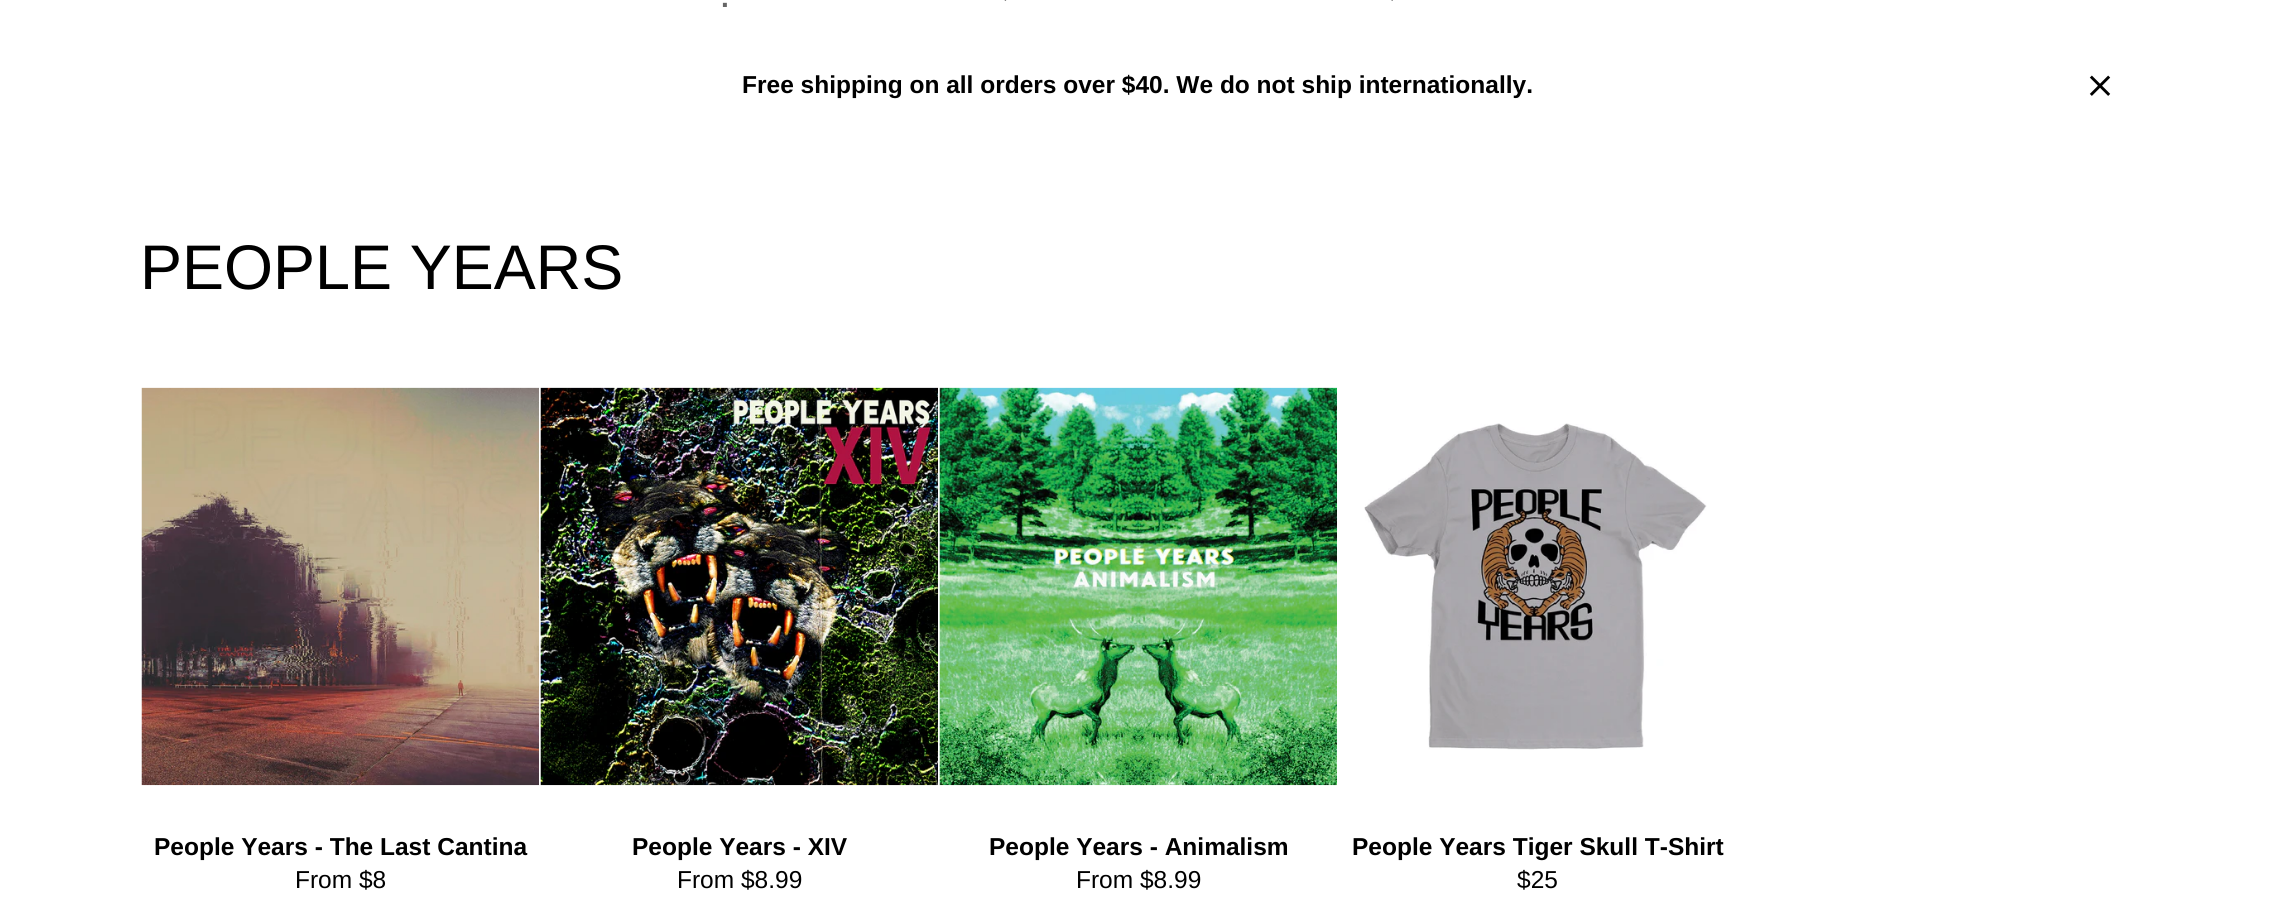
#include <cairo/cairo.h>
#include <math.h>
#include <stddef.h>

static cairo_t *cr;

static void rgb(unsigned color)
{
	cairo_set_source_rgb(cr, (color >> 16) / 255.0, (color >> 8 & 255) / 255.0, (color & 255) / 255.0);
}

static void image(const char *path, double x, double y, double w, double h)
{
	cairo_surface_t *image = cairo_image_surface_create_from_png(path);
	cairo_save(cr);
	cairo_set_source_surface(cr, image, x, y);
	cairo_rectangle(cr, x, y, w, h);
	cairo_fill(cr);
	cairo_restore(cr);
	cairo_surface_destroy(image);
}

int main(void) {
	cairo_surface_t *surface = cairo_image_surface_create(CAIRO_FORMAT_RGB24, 2274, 905);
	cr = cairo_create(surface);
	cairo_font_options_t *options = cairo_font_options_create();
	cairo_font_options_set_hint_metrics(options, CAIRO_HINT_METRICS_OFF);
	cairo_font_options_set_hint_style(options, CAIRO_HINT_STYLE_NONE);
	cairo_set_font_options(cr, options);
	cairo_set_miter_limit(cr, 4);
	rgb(0xffffff);
	cairo_paint(cr);
	image("img/1.png", 1004, 0, 3, 1);
	image("img/2.png", 1391, 0, 2, 1);
	image("img/3.png", 2089, 75, 22, 21);
	image("img/4.png", 141, 387, 398, 399);
	image("img/5.png", 540, 387, 398, 399);
	image("img/6.png", 939, 387, 398, 399);
	image("img/7.png", 1364, 423, 343, 327);
	cairo_select_font_face(cr, "Liberation Sans", CAIRO_FONT_SLANT_NORMAL, CAIRO_FONT_WEIGHT_BOLD);
	cairo_set_font_size(cr, 28);
	rgb(0x666666);
	cairo_move_to(cr, 721, 7);
	cairo_show_text(cr, ".");
	cairo_set_font_size(cr, 24.5);
	rgb(0x000000);
	cairo_move_to(cr, 742, 93);
	cairo_show_text(cr, "Free shipping on all orders over $40. We do not ship internationally.");
	cairo_select_font_face(cr, "Liberation Sans", CAIRO_FONT_SLANT_NORMAL, CAIRO_FONT_WEIGHT_NORMAL);
	cairo_set_font_size(cr, 63);
	cairo_move_to(cr, 140, 289);
	cairo_show_text(cr, "PEOPLE YEARS");
	cairo_select_font_face(cr, "Liberation Sans", CAIRO_FONT_SLANT_NORMAL, CAIRO_FONT_WEIGHT_BOLD);
	cairo_set_font_size(cr, 24.5);
	cairo_move_to(cr, 154, 855);
	cairo_show_text(cr, "People Years - The Last Cantina");
	cairo_select_font_face(cr, "Liberation Sans", CAIRO_FONT_SLANT_NORMAL, CAIRO_FONT_WEIGHT_NORMAL);
	cairo_move_to(cr, 295, 888);
	cairo_show_text(cr, "From $8");
	cairo_select_font_face(cr, "Liberation Sans", CAIRO_FONT_SLANT_NORMAL, CAIRO_FONT_WEIGHT_BOLD);
	cairo_move_to(cr, 632, 855);
	cairo_show_text(cr, "People Years - XIV");
	cairo_select_font_face(cr, "Liberation Sans", CAIRO_FONT_SLANT_NORMAL, CAIRO_FONT_WEIGHT_NORMAL);
	cairo_move_to(cr, 677, 888);
	cairo_show_text(cr, "From $8.99");
	cairo_select_font_face(cr, "Liberation Sans", CAIRO_FONT_SLANT_NORMAL, CAIRO_FONT_WEIGHT_BOLD);
	cairo_move_to(cr, 989, 855);
	cairo_show_text(cr, "People Years - Animalism");
	cairo_select_font_face(cr, "Liberation Sans", CAIRO_FONT_SLANT_NORMAL, CAIRO_FONT_WEIGHT_NORMAL);
	cairo_move_to(cr, 1076, 888);
	cairo_show_text(cr, "From $8.99");
	cairo_select_font_face(cr, "Liberation Sans", CAIRO_FONT_SLANT_NORMAL, CAIRO_FONT_WEIGHT_BOLD);
	cairo_move_to(cr, 1352, 855);
	cairo_show_text(cr, "People Years Tiger Skull T-Shirt");
	cairo_select_font_face(cr, "Liberation Sans", CAIRO_FONT_SLANT_NORMAL, CAIRO_FONT_WEIGHT_NORMAL);
	cairo_move_to(cr, 1517, 888);
	cairo_show_text(cr, "$25");
	cairo_surface_write_to_png(surface, "page.png");
	cairo_font_options_destroy(options);
	cairo_destroy(cr);
	cairo_surface_destroy(surface);
	return 0;
}
